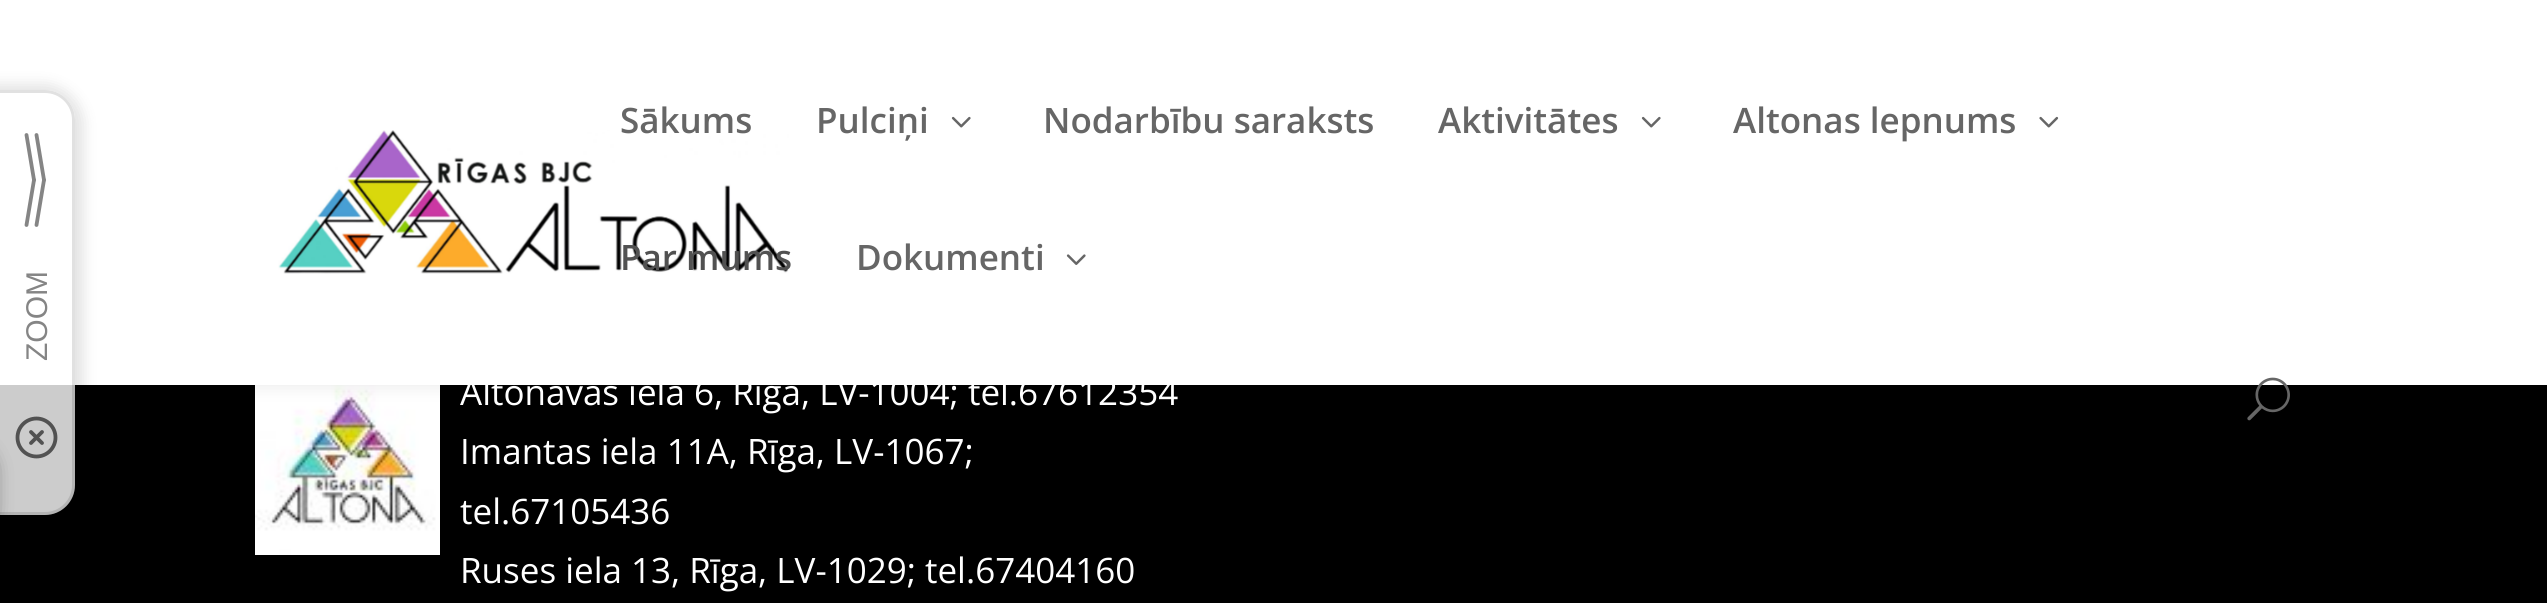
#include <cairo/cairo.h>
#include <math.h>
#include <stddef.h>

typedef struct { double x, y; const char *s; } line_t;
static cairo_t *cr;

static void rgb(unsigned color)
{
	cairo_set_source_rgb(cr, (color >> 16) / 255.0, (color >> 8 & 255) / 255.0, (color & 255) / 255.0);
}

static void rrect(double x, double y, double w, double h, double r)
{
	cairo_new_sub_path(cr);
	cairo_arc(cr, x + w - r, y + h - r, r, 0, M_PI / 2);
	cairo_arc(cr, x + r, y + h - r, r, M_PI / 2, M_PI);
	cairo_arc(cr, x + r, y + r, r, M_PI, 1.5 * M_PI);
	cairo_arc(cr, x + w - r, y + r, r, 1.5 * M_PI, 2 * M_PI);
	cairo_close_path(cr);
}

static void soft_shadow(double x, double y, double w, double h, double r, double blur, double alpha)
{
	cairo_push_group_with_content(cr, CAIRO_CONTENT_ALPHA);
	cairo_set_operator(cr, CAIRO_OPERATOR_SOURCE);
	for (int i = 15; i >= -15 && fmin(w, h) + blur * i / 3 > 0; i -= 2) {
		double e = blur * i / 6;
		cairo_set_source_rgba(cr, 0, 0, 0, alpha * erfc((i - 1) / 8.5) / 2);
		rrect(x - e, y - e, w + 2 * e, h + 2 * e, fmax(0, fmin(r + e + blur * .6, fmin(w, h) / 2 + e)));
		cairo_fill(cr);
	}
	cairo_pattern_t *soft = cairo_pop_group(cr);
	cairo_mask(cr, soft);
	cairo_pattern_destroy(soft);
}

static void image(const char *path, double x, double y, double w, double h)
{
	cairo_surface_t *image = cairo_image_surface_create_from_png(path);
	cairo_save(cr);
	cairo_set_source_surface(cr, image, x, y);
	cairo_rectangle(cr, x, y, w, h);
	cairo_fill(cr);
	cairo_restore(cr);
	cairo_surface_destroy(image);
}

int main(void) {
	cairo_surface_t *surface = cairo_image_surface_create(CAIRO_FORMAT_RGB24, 2547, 603);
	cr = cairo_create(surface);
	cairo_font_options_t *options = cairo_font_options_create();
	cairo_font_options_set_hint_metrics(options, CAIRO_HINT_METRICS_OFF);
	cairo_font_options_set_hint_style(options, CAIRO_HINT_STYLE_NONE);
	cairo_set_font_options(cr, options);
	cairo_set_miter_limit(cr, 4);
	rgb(0x000000);
	cairo_paint(cr);
	image("img/6.png", 255, 385, 185, 170);
	soft_shadow(0, 0, 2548, 385, 0, 9, 0.1);
	rgb(0xffffff);
	cairo_rectangle(cr, 0, 0, 2547, 385);
	cairo_fill(cr);
	cairo_save(cr);
	cairo_set_fill_rule(cr, CAIRO_FILL_RULE_EVEN_ODD);
	cairo_new_path(cr);
	cairo_move_to(cr, 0, 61);
	cairo_line_to(cr, 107, 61);
	cairo_line_to(cr, 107, 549);
	cairo_line_to(cr, 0, 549);
	cairo_close_path(cr);
	cairo_move_to(cr, -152, 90);
	cairo_line_to(cr, 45, 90);
	cairo_curve_to(cr, 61.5, 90, 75, 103.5, 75, 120);
	cairo_line_to(cr, 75, 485);
	cairo_curve_to(cr, 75, 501.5, 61.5, 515, 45, 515);
	cairo_line_to(cr, -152, 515);
	cairo_curve_to(cr, -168.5, 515, -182, 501.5, -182, 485);
	cairo_line_to(cr, -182, 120);
	cairo_curve_to(cr, -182, 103.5, -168.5, 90, -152, 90);
	cairo_close_path(cr);
	cairo_clip(cr);
	rgb(0x000000);
	soft_shadow(-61, 85, 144, 440, 38, 7.5, 0.12);
	cairo_restore(cr);
	cairo_set_source_rgba(cr, 1, 1, 1, 0.8);
	rrect(-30, 90, 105, 425, 30);
	cairo_fill(cr);
	rrect(-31.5, 91.5, 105, 422, 28.5);
	cairo_set_source_rgba(cr, 0, 0, 0, 0.12);
	cairo_set_line_width(cr, 3);
	cairo_stroke(cr);
	cairo_new_path(cr);
	cairo_move_to(cr, 36.5, 135);
	cairo_line_to(cr, 44, 180);
	rgb(0x858585);
	cairo_set_line_width(cr, 3.8);
	cairo_set_line_cap(cr, CAIRO_LINE_CAP_ROUND);
	cairo_stroke(cr);
	cairo_new_path(cr);
	cairo_move_to(cr, 44, 180);
	cairo_line_to(cr, 36.5, 225);
	cairo_stroke(cr);
	cairo_new_path(cr);
	cairo_move_to(cr, 34, 180);
	cairo_line_to(cr, 26.5, 135);
	cairo_stroke(cr);
	cairo_new_path(cr);
	cairo_move_to(cr, 26.5, 225);
	cairo_line_to(cr, 34, 180);
	cairo_stroke(cr);
	rgb(0x000000);
	soft_shadow(-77, 440, 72, 100, 50, 9, 0.39);
	cairo_arc(cr, 36.5, 437.5, 19, 0, 2 * M_PI);
	rgb(0x525252);
	cairo_set_line_cap(cr, CAIRO_LINE_CAP_BUTT);
	cairo_stroke(cr);
	cairo_new_path(cr);
	cairo_move_to(cr, 42, 432);
	cairo_line_to(cr, 31, 443);
	cairo_move_to(cr, 31, 432);
	cairo_line_to(cr, 42, 443);
	cairo_set_line_cap(cr, CAIRO_LINE_CAP_ROUND);
	cairo_set_line_join(cr, CAIRO_LINE_JOIN_ROUND);
	cairo_stroke(cr);
	image("img/1.png", 278, 130, 511, 144);
	image("img/2.png", 951, 116, 20, 12);
	image("img/2.png", 1641, 116, 20, 12);
	image("img/3.png", 2039, 116, 20, 12);
	image("img/4.png", 1066, 254, 20, 11);
	image("img/5.png", 2247, 377, 43, 44);
	cairo_select_font_face(cr, "Liberation Sans", CAIRO_FONT_SLANT_NORMAL, CAIRO_FONT_WEIGHT_NORMAL);
	cairo_set_font_size(cr, 30);
	rgb(0x858585);
	cairo_save(cr);
	cairo_translate(cr, 47, 361);
	cairo_rotate(cr, -90 * M_PI / 180);
	cairo_move_to(cr, 0, 0);
	cairo_show_text(cr, "ZOOM");
	cairo_restore(cr);
	cairo_select_font_face(cr, "Open Sans SemiBold", CAIRO_FONT_SLANT_NORMAL, CAIRO_FONT_WEIGHT_NORMAL);
	cairo_set_font_size(cr, 35);
	rgb(0x666666);
	{
		static const line_t items[] = {
			{620, 133, "Sākums"},
			{816, 133, "Pulciņi"},
			{1043, 133, "Nodarbību saraksts"},
			{1438, 133, "Aktivitātes"},
			{1733, 133, "Altonas lepnums"},
		};
		for (size_t i = 0; i < sizeof items / sizeof *items; i++) {
			cairo_move_to(cr, items[i].x, items[i].y);
			cairo_show_text(cr, items[i].s);
		}
	}
	rgb(0x515151);
	cairo_move_to(cr, 620, 270);
	cairo_show_text(cr, "Par mums");
	rgb(0x666666);
	cairo_move_to(cr, 856, 270);
	cairo_show_text(cr, "Dokumenti");
	cairo_select_font_face(cr, "Open Sans", CAIRO_FONT_SLANT_NORMAL, CAIRO_FONT_WEIGHT_NORMAL);
	rgb(0xffffff);
	{
		static const line_t items[] = {
			{460, 405, "Altonavas iela 6, Rīga, LV-1004; tel.67612354"},
			{460, 464, "Imantas iela 11A, Rīga, LV-1067;"},
			{460, 524, "tel.67105436"},
			{460, 583, "Ruses iela 13, Rīga, LV-1029; tel.67404160"},
		};
		for (size_t i = 0; i < sizeof items / sizeof *items; i++) {
			cairo_move_to(cr, items[i].x, items[i].y);
			cairo_show_text(cr, items[i].s);
		}
	}
	cairo_surface_write_to_png(surface, "page.png");
	cairo_font_options_destroy(options);
	cairo_destroy(cr);
	cairo_surface_destroy(surface);
	return 0;
}
